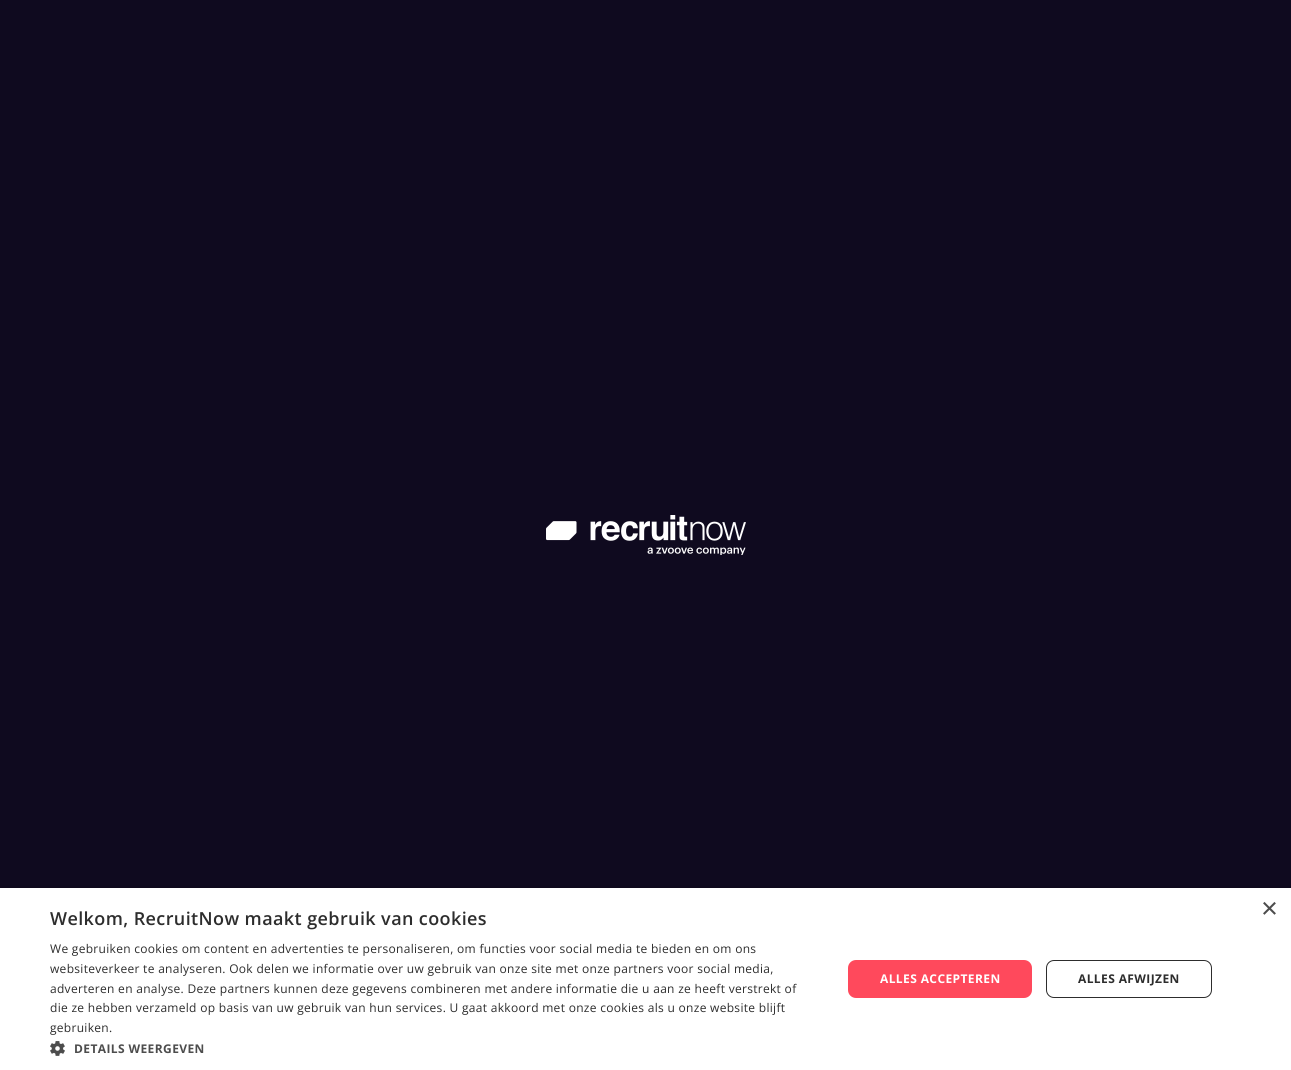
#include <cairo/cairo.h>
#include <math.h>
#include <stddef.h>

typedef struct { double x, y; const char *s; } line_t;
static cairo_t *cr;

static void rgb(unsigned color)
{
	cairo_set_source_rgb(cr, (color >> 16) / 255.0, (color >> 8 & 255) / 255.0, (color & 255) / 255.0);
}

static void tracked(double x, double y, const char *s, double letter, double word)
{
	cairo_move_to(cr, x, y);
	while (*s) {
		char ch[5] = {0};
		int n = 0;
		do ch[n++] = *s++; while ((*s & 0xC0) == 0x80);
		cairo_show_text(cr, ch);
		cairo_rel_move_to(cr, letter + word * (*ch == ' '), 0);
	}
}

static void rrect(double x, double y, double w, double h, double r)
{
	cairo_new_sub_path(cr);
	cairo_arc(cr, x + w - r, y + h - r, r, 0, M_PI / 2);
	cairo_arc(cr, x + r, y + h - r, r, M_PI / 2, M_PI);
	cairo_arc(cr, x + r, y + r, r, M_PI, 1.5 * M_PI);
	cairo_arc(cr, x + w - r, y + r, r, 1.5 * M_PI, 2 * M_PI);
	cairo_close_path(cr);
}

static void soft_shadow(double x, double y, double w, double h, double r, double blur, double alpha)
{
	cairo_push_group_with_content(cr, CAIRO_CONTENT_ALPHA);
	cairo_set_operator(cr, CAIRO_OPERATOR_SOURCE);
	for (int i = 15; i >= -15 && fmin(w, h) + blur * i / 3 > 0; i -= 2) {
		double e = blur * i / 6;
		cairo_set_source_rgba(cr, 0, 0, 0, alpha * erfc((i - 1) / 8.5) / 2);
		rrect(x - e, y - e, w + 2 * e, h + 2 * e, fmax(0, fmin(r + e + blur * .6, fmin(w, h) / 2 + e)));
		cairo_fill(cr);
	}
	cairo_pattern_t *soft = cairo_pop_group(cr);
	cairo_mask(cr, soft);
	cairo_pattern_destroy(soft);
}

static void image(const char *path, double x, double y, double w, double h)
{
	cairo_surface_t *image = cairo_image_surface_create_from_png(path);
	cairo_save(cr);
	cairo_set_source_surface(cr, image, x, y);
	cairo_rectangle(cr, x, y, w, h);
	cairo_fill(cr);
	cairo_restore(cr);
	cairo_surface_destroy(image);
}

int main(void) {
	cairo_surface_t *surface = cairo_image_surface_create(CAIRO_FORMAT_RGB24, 1291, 1070);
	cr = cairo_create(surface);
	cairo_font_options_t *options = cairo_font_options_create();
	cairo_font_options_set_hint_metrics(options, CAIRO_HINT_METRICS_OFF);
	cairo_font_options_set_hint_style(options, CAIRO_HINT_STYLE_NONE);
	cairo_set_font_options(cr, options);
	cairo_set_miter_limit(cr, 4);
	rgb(0x0f0a1f);
	cairo_paint(cr);
	image("img/1.png", 546, 515, 200, 40);
	rgb(0x000000);
	soft_shadow(1, 890, 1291, 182, 0, 4, 0.35);
	rgb(0xffffff);
	cairo_rectangle(cr, 0, 888, 1291, 182);
	cairo_fill(cr);
	image("img/2.png", 50, 1041, 15, 15);
	rgb(0xff495c);
	rrect(848, 960, 184, 38, 8);
	cairo_fill(cr);
	rrect(1046.5, 960.5, 165, 37, 7.5);
	rgb(0x2d2d2d);
	cairo_set_line_width(cr, 1);
	cairo_stroke(cr);
	cairo_select_font_face(cr, "Liberation Sans", CAIRO_FONT_SLANT_NORMAL, CAIRO_FONT_WEIGHT_NORMAL);
	cairo_set_font_size(cr, 29);
	rgb(0x4d4d4d);
	cairo_move_to(cr, 1261, 918);
	cairo_show_text(cr, "×");
	cairo_select_font_face(cr, "Open Sans SemiBold", CAIRO_FONT_SLANT_NORMAL, CAIRO_FONT_WEIGHT_NORMAL);
	cairo_set_font_size(cr, 18);
	rgb(0x2d2d2d);
	tracked(50, 925, "Welkom, RecruitNow maakt gebruik van cookies", 0.4, 0);
	cairo_select_font_face(cr, "Open Sans", CAIRO_FONT_SLANT_NORMAL, CAIRO_FONT_WEIGHT_NORMAL);
	cairo_set_font_size(cr, 12);
	{
		static const line_t items[] = {
			{50, 953, "We gebruiken cookies om content en advertenties te personaliseren, om functies voor social media te bieden en om ons"},
			{50, 973, "websiteverkeer te analyseren. Ook delen we informatie over uw gebruik van onze site met onze partners voor social media,"},
			{50, 993, "adverteren en analyse. Deze partners kunnen deze gegevens combineren met andere informatie die u aan ze heeft verstrekt of"},
			{50, 1012, "die ze hebben verzameld op basis van uw gebruik van hun services. U gaat akkoord met onze cookies als u onze website blijft"},
			{50, 1032, "gebruiken."},
		};
		for (size_t i = 0; i < sizeof items / sizeof *items; i++) {
			tracked(items[i].x, items[i].y, items[i].s, 0.3, 0);
		}
	}
	cairo_select_font_face(cr, "Open Sans", CAIRO_FONT_SLANT_NORMAL, CAIRO_FONT_WEIGHT_BOLD);
	rgb(0x4d4d4d);
	tracked(74, 1053, "DETAILS WEERGEVEN", 0.4, 0);
	rgb(0xffffff);
	tracked(880, 983, "ALLES ACCEPTEREN", 0.4, 0);
	rgb(0x2d2d2d);
	tracked(1078, 983, "ALLES AFWIJZEN", 0.4, 0);
	cairo_surface_write_to_png(surface, "page.png");
	cairo_font_options_destroy(options);
	cairo_destroy(cr);
	cairo_surface_destroy(surface);
	return 0;
}
